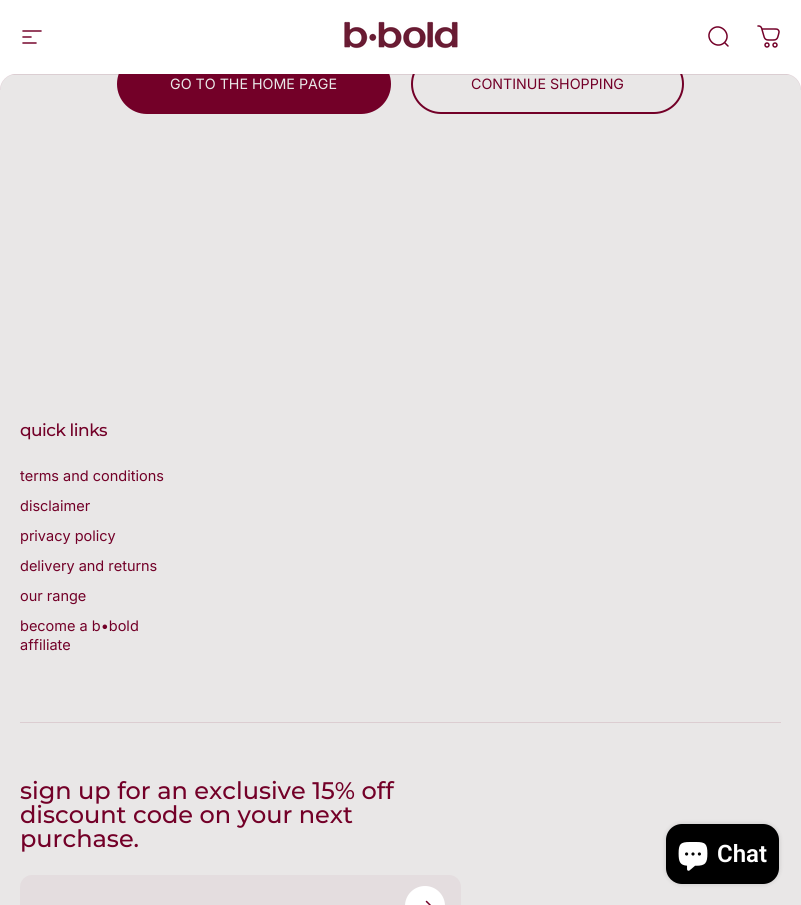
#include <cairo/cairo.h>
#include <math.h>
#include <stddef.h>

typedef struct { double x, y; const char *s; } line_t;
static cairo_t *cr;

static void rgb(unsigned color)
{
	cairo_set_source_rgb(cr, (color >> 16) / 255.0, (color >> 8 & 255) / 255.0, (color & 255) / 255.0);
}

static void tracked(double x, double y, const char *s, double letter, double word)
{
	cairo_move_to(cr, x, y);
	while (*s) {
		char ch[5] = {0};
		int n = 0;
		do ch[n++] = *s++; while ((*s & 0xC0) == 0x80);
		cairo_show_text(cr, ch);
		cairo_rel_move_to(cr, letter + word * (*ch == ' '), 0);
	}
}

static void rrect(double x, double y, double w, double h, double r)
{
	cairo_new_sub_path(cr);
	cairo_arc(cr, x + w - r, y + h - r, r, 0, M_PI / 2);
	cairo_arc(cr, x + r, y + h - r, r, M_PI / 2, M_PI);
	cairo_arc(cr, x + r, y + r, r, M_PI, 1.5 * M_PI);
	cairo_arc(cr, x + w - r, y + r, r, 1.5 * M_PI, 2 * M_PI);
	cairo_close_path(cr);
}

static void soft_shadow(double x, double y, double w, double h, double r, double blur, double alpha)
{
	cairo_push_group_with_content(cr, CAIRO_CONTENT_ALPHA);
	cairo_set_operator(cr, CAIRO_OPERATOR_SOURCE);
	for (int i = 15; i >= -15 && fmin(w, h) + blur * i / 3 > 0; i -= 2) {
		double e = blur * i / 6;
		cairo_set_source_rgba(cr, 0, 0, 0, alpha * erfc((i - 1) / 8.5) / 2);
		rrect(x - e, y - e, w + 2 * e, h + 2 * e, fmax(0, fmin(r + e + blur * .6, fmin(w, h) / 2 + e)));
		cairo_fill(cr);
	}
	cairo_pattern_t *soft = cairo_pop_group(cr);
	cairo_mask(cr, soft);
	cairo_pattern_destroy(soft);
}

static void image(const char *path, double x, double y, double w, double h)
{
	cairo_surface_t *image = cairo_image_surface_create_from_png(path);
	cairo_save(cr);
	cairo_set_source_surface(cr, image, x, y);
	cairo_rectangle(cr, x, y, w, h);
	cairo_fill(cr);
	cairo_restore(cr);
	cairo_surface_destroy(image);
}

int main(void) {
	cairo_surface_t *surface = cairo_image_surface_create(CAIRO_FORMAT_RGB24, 801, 905);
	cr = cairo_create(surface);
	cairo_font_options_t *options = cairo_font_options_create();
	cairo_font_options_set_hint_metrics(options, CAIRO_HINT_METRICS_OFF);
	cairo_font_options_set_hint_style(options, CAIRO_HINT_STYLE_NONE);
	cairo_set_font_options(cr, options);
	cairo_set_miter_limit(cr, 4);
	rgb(0xe9e7e7);
	cairo_paint(cr);
	rgb(0x730028);
	rrect(118, 55, 272, 58, 29);
	cairo_fill_preserve(cr);
	cairo_stroke(cr);
	rrect(412, 55, 271, 58, 29);
	cairo_stroke(cr);
	rgb(0xffffff);
	cairo_rectangle(cr, 0, 0, 801, 74);
	cairo_fill(cr);
	cairo_new_path(cr);
	cairo_move_to(cr, 23, 31);
	cairo_line_to(cr, 41, 31);
	cairo_move_to(cr, 23, 37);
	cairo_line_to(cr, 31, 37);
	cairo_move_to(cr, 23, 43);
	cairo_line_to(cr, 36, 43);
	rgb(0x730028);
	cairo_set_line_width(cr, 1.5);
	cairo_set_line_cap(cr, CAIRO_LINE_CAP_ROUND);
	cairo_stroke(cr);
	image("img/1.png", 344, 21, 114, 28);
	cairo_new_path(cr);
	cairo_move_to(cr, 728, 46);
	cairo_line_to(cr, 724.5, 42.5);
	cairo_move_to(cr, 724.5, 42.5);
	cairo_curve_to(cr, 732.5, 34, 720, 21.5, 711.5, 29.5);
	cairo_curve_to(cr, 703.5, 38, 716, 50.5, 724.5, 42.5);
	cairo_close_path(cr);
	cairo_stroke(cr);
	image("img/2.png", 757, 25, 23, 23);
	cairo_set_source_rgba(cr, 0.451, 0, 0.157, 0.11);
	cairo_rectangle(cr, 11, 74, 779, 1);
	cairo_fill(cr);
	image("img/3.png", 0, 74, 14, 16);
	image("img/4.png", 787, 74, 14, 16);
	rgb(0xdccdd1);
	cairo_rectangle(cr, 20, 722, 761, 1);
	cairo_fill(cr);
	rgb(0xe4dddf);
	rrect(20, 875, 441, 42, 12);
	cairo_fill(cr);
	rgb(0xffffff);
	cairo_arc(cr, 425, 906, 19, 0, 2 * M_PI);
	cairo_fill_preserve(cr);
	cairo_set_line_width(cr, 2);
	cairo_set_line_cap(cr, CAIRO_LINE_CAP_BUTT);
	cairo_stroke(cr);
	cairo_new_path(cr);
	cairo_move_to(cr, 419, 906);
	cairo_line_to(cr, 431, 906);
	cairo_move_to(cr, 431, 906);
	cairo_line_to(cr, 426.5, 901.5);
	cairo_move_to(cr, 431, 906);
	cairo_line_to(cr, 426.5, 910.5);
	rgb(0x730028);
	cairo_set_line_width(cr, 1.5);
	cairo_set_line_cap(cr, CAIRO_LINE_CAP_ROUND);
	cairo_set_line_join(cr, CAIRO_LINE_JOIN_ROUND);
	cairo_stroke(cr);
	rgb(0x000000);
	soft_shadow(666, 824, 113, 60, 16, 2.5, 0.15);
	rgb(0x000000);
	rrect(666, 824, 113, 60, 16);
	cairo_fill(cr);
	image("img/5.png", 678, 842, 30, 29);
	cairo_select_font_face(cr, "Inter", CAIRO_FONT_SLANT_NORMAL, CAIRO_FONT_WEIGHT_NORMAL);
	cairo_set_font_size(cr, 14.25);
	rgb(0xe9e7e7);
	cairo_move_to(cr, 170, 89);
	cairo_show_text(cr, "GO TO THE HOME PAGE");
	rgb(0x730028);
	cairo_move_to(cr, 471, 89);
	cairo_show_text(cr, "CONTINUE SHOPPING");
	cairo_select_font_face(cr, "Montserrat Medium", CAIRO_FONT_SLANT_NORMAL, CAIRO_FONT_WEIGHT_NORMAL);
	cairo_set_font_size(cr, 17);
	tracked(20, 436, "quick links", -0.5, 0);
	cairo_select_font_face(cr, "Inter", CAIRO_FONT_SLANT_NORMAL, CAIRO_FONT_WEIGHT_NORMAL);
	cairo_set_font_size(cr, 14.5);
	{
		static const line_t items[] = {
			{20, 481, "terms and conditions"},
			{20, 511, "disclaimer"},
			{20, 541, "privacy policy"},
			{20, 571, "delivery and returns"},
			{20, 601, "our range"},
			{20, 631, "become a b•bold"},
			{20, 650, "affiliate"},
		};
		for (size_t i = 0; i < sizeof items / sizeof *items; i++) {
			cairo_move_to(cr, items[i].x, items[i].y);
			cairo_show_text(cr, items[i].s);
		}
	}
	cairo_select_font_face(cr, "Montserrat Medium", CAIRO_FONT_SLANT_NORMAL, CAIRO_FONT_WEIGHT_NORMAL);
	cairo_set_font_size(cr, 24);
	{
		static const line_t items[] = {
			{20, 799, "sign up for an exclusive 15% off"},
			{20, 823, "discount code on your next"},
			{20, 847, "purchase."},
		};
		for (size_t i = 0; i < sizeof items / sizeof *items; i++) {
			cairo_move_to(cr, items[i].x, items[i].y);
			cairo_show_text(cr, items[i].s);
		}
	}
	cairo_select_font_face(cr, "Roboto SemiBold", CAIRO_FONT_SLANT_NORMAL, CAIRO_FONT_WEIGHT_NORMAL);
	rgb(0xffffff);
	cairo_move_to(cr, 717, 862);
	cairo_show_text(cr, "Chat");
	cairo_surface_write_to_png(surface, "page.png");
	cairo_font_options_destroy(options);
	cairo_destroy(cr);
	cairo_surface_destroy(surface);
	return 0;
}
